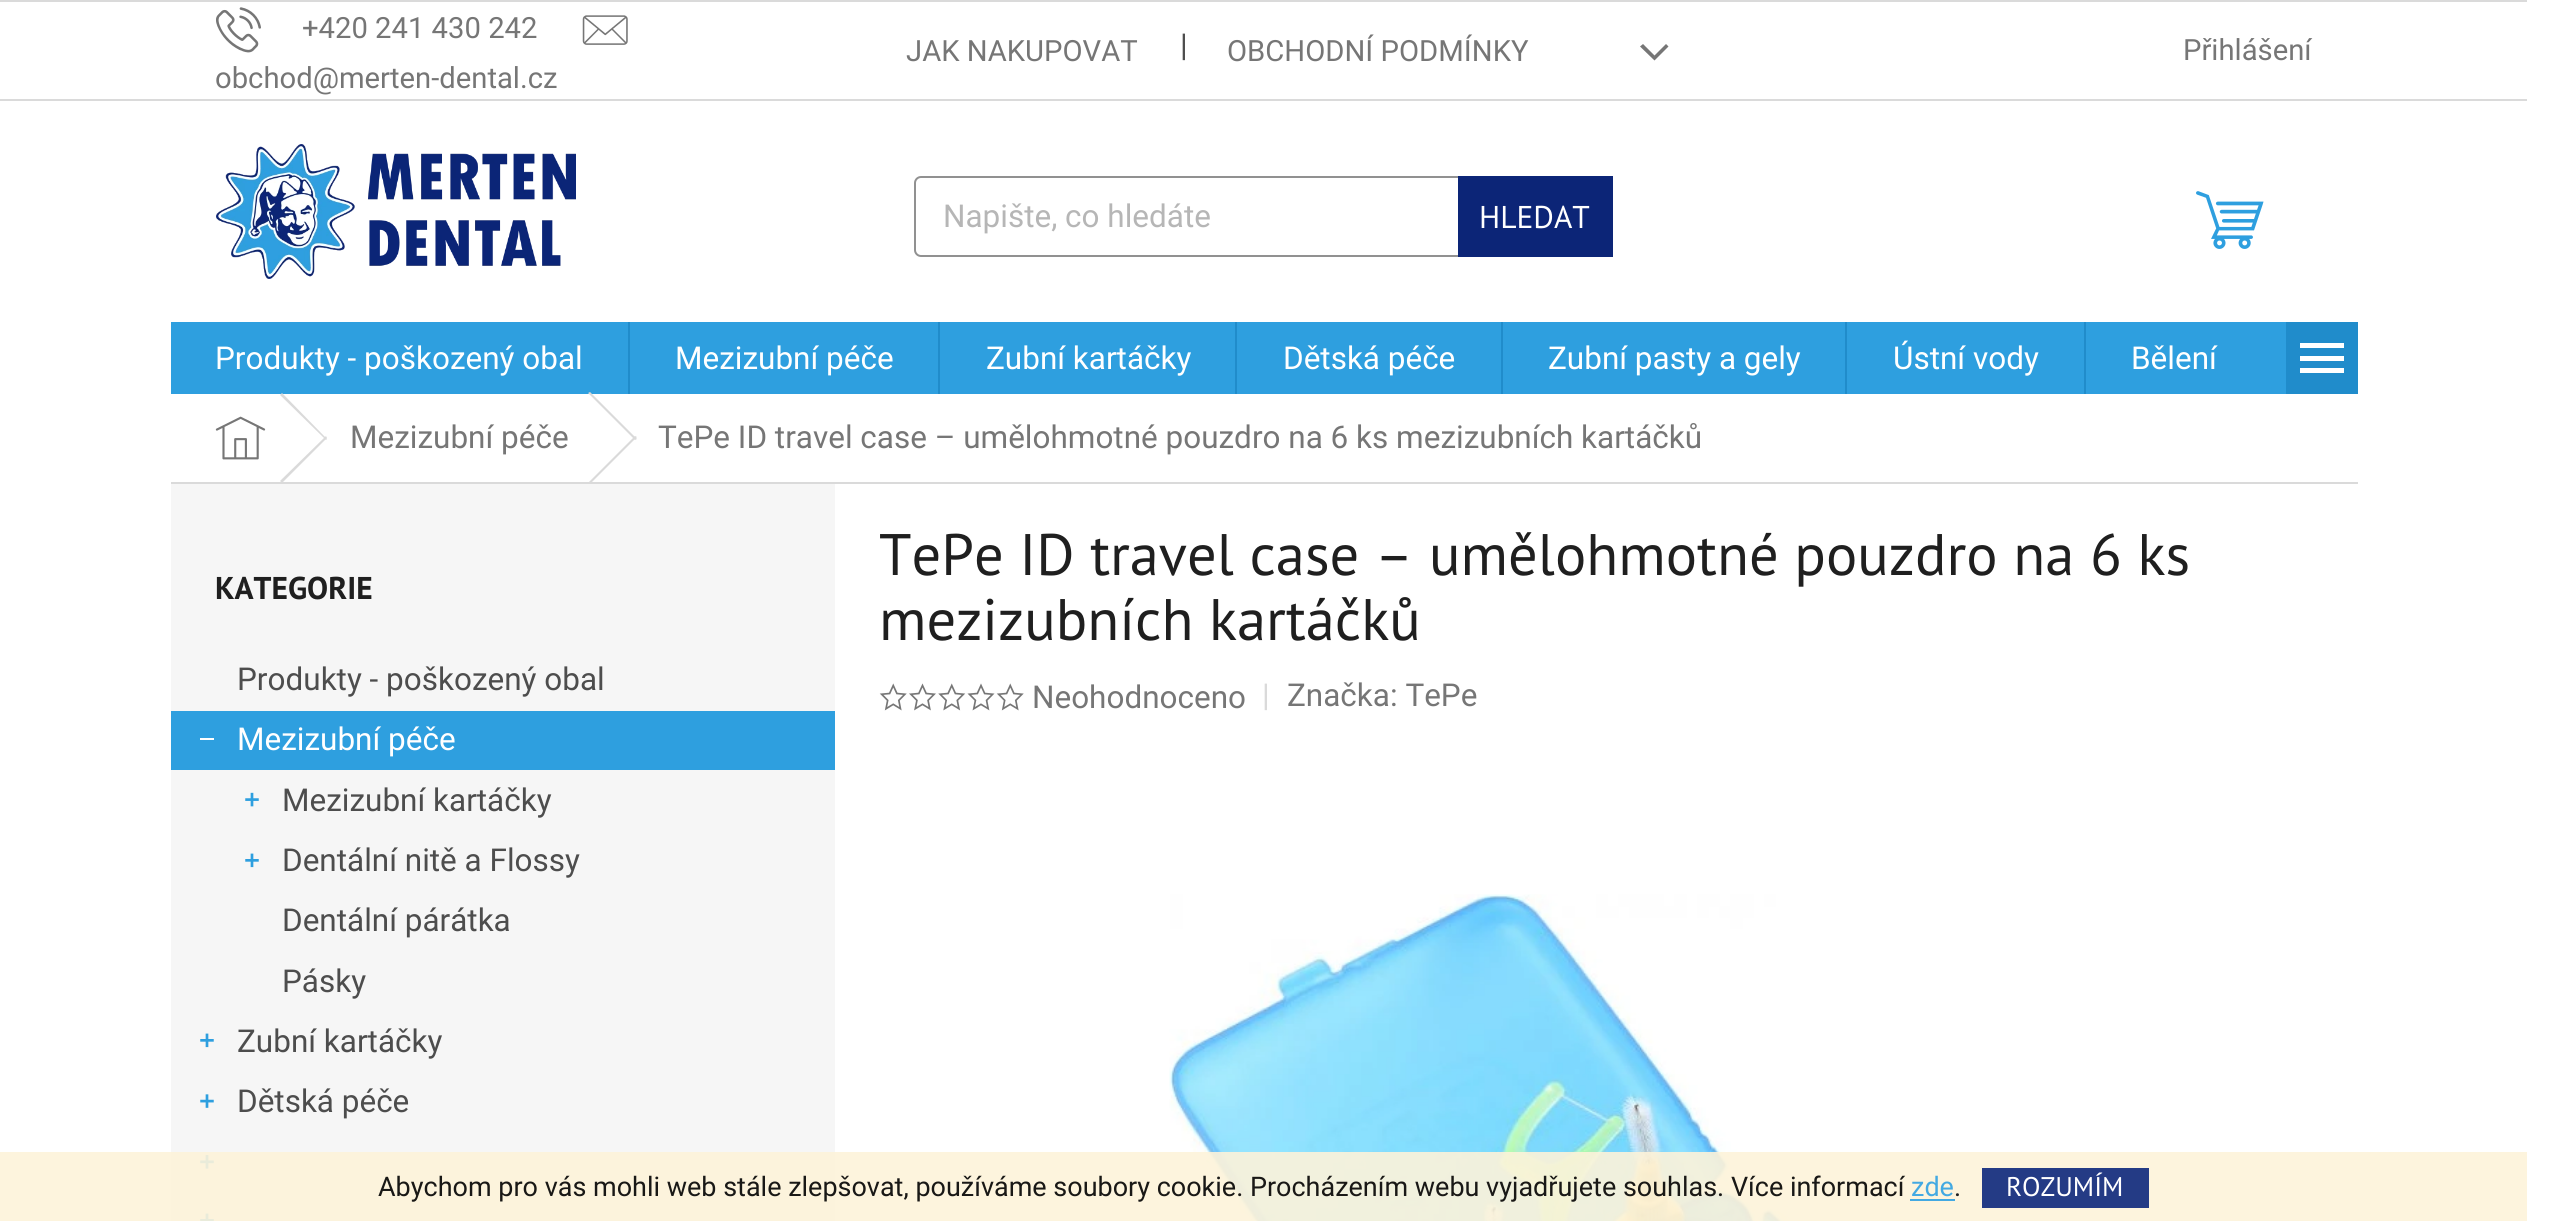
#include <cairo/cairo.h>
#include <math.h>
#include <stddef.h>

typedef struct { double x, y; const char *s; } line_t;
typedef struct { double x, y, w, h; unsigned color; } box_t;
static cairo_t *cr;

static void rgb(unsigned color)
{
	cairo_set_source_rgb(cr, (color >> 16) / 255.0, (color >> 8 & 255) / 255.0, (color & 255) / 255.0);
}

static void rrect(double x, double y, double w, double h, double r)
{
	cairo_new_sub_path(cr);
	cairo_arc(cr, x + w - r, y + h - r, r, 0, M_PI / 2);
	cairo_arc(cr, x + r, y + h - r, r, M_PI / 2, M_PI);
	cairo_arc(cr, x + r, y + r, r, M_PI, 1.5 * M_PI);
	cairo_arc(cr, x + w - r, y + r, r, 1.5 * M_PI, 2 * M_PI);
	cairo_close_path(cr);
}

static void image(const char *path, double x, double y, double w, double h)
{
	cairo_surface_t *image = cairo_image_surface_create_from_png(path);
	cairo_save(cr);
	cairo_set_source_surface(cr, image, x, y);
	cairo_rectangle(cr, x, y, w, h);
	cairo_fill(cr);
	cairo_restore(cr);
	cairo_surface_destroy(image);
}

int main(void) {
	cairo_surface_t *surface = cairo_image_surface_create(CAIRO_FORMAT_RGB24, 2560, 1221);
	cr = cairo_create(surface);
	cairo_font_options_t *options = cairo_font_options_create();
	cairo_font_options_set_hint_metrics(options, CAIRO_HINT_METRICS_OFF);
	cairo_font_options_set_hint_style(options, CAIRO_HINT_STYLE_NONE);
	cairo_set_font_options(cr, options);
	cairo_set_miter_limit(cr, 4);
	rgb(0xffffff);
	cairo_paint(cr);
	rgb(0xdadada);
	cairo_rectangle(cr, 0, 0, 2527, 2);
	cairo_fill(cr);
	cairo_rectangle(cr, 0, 99, 2527, 2);
	cairo_fill(cr);
	image("img/1.png", 216, 7, 45, 46);
	image("img/2.png", 582, 15, 46, 30);
	rgb(0x767676);
	cairo_new_path(cr);
	cairo_move_to(cr, 1640, 46.5);
	cairo_line_to(cr, 1643, 44);
	cairo_line_to(cr, 1654.5, 55.5);
	cairo_line_to(cr, 1666, 44);
	cairo_line_to(cr, 1668.5, 46.5);
	cairo_line_to(cr, 1654.5, 60.5);
	cairo_close_path(cr);
	cairo_fill(cr);
	image("img/3.png", 216, 144, 360, 135);
	rrect(915, 177, 697, 79, 6);
	rgb(0x919191);
	cairo_stroke(cr);
	rgb(0x0c2577);
	cairo_rectangle(cr, 1458, 176, 155, 81);
	cairo_fill(cr);
	image("img/4.png", 2196, 191, 68, 58);
	{
		static const box_t items[] = {
			{171, 322, 2115, 72, 0x2e9fdf},
			{628, 322, 2, 72, 0x208ccb},
			{938, 322, 2, 72, 0x208ccb},
			{1235, 322, 2, 72, 0x208ccb},
			{1501, 322, 2, 72, 0x208ccb},
			{1845, 322, 2, 72, 0x208ccb},
			{2084, 322, 2, 72, 0x208ccb},
			{2286, 322, 72, 72, 0x208ccb},
		};
		for (size_t i = 0; i < sizeof items / sizeof *items; i++) {
			rgb(items[i].color);
			cairo_rectangle(cr, items[i].x, items[i].y, items[i].w, items[i].h);
			cairo_fill(cr);
		}
	}
	rgb(0xffffff);
	cairo_new_path(cr);
	cairo_move_to(cr, 2300, 373);
	cairo_line_to(cr, 2344, 373);
	cairo_line_to(cr, 2344, 368);
	cairo_line_to(cr, 2300, 368);
	cairo_close_path(cr);
	cairo_move_to(cr, 2300, 361);
	cairo_line_to(cr, 2344, 361);
	cairo_line_to(cr, 2344, 356);
	cairo_line_to(cr, 2300, 356);
	cairo_close_path(cr);
	cairo_move_to(cr, 2300, 343);
	cairo_line_to(cr, 2300, 348);
	cairo_line_to(cr, 2344, 348);
	cairo_line_to(cr, 2344, 343);
	cairo_close_path(cr);
	cairo_fill(cr);
	rgb(0xdadada);
	cairo_rectangle(cr, 171, 482, 2187, 2);
	cairo_fill(cr);
	image("img/5.png", 215, 416, 51, 44);
	cairo_new_path(cr);
	cairo_move_to(cr, 280, 395);
	cairo_line_to(cr, 282, 393);
	cairo_line_to(cr, 327, 439);
	cairo_line_to(cr, 326, 440);
	cairo_close_path(cr);
	cairo_fill(cr);
	cairo_new_path(cr);
	cairo_move_to(cr, 326, 436);
	cairo_line_to(cr, 327, 438);
	cairo_line_to(cr, 282, 483);
	cairo_line_to(cr, 280, 481);
	cairo_close_path(cr);
	cairo_fill(cr);
	cairo_new_path(cr);
	cairo_move_to(cr, 588, 393);
	cairo_line_to(cr, 590, 392);
	cairo_line_to(cr, 637, 439);
	cairo_line_to(cr, 635, 440);
	cairo_close_path(cr);
	cairo_fill(cr);
	cairo_new_path(cr);
	cairo_move_to(cr, 635, 436);
	cairo_line_to(cr, 637, 437);
	cairo_line_to(cr, 590, 484);
	cairo_line_to(cr, 588, 483);
	cairo_close_path(cr);
	cairo_fill(cr);
	{
		static const box_t items[] = {
			{171, 484, 664, 737, 0xf6f6f6},
			{171, 711, 664, 59, 0x2e9fdf},
			{200, 738, 14, 2, 0xffffff},
		};
		for (size_t i = 0; i < sizeof items / sizeof *items; i++) {
			rgb(items[i].color);
			cairo_rectangle(cr, items[i].x, items[i].y, items[i].w, items[i].h);
			cairo_fill(cr);
		}
	}
	image("img/6.png", 245, 792, 14, 15);
	image("img/7.png", 245, 853, 14, 15);
	image("img/7.png", 200, 1033, 14, 15);
	image("img/8.png", 200, 1094, 14, 14);
	image("img/9.png", 200, 1155, 14, 14);
	image("img/10.png", 200, 1213, 14, 8);
	image("img/11.png", 879, 683, 28, 28);
	image("img/12.png", 909, 683, 27, 28);
	image("img/13.png", 938, 683, 28, 28);
	image("img/14.png", 967, 683, 28, 28);
	image("img/11.png", 996, 683, 28, 28);
	image("img/15.png", 1169, 894, 621, 327);
	cairo_set_source_rgba(cr, 0.992, 0.953, 0.855, 0.9);
	cairo_rectangle(cr, 0, 1152, 2527, 69);
	cairo_fill(cr);
	rgb(0x43a9e2);
	cairo_rectangle(cr, 1910, 1199, 45, 2);
	cairo_fill(cr);
	rgb(0x243b85);
	cairo_rectangle(cr, 1982, 1168, 167, 40);
	cairo_fill(cr);
	cairo_select_font_face(cr, "Roboto", CAIRO_FONT_SLANT_NORMAL, CAIRO_FONT_WEIGHT_NORMAL);
	cairo_set_font_size(cr, 29.25);
	rgb(0x767676);
	{
		static const line_t items[] = {
			{302, 38, "+420 241 430 242"},
			{215, 88, "obchod@merten-dental.cz"},
			{906, 61, "JAK NAKUPOVAT"},
		};
		for (size_t i = 0; i < sizeof items / sizeof *items; i++) {
			cairo_move_to(cr, items[i].x, items[i].y);
			cairo_show_text(cr, items[i].s);
		}
	}
	cairo_set_font_size(cr, 31.5);
	rgb(0x4d4d4d);
	cairo_move_to(cr, 1180, 56);
	cairo_show_text(cr, "|");
	cairo_set_font_size(cr, 29.25);
	rgb(0x767676);
	cairo_move_to(cr, 1227, 61);
	cairo_show_text(cr, "OBCHODNÍ PODMÍNKY");
	cairo_move_to(cr, 2183, 60);
	cairo_show_text(cr, "Přihlášení");
	cairo_set_font_size(cr, 31.5);
	rgb(0xb6b6b6);
	cairo_move_to(cr, 943, 227);
	cairo_show_text(cr, "Napište, co hledáte");
	cairo_select_font_face(cr, "PT Sans", CAIRO_FONT_SLANT_NORMAL, CAIRO_FONT_WEIGHT_NORMAL);
	rgb(0xffffff);
	cairo_move_to(cr, 1479, 228);
	cairo_show_text(cr, "HLEDAT");
	cairo_select_font_face(cr, "Roboto", CAIRO_FONT_SLANT_NORMAL, CAIRO_FONT_WEIGHT_NORMAL);
	{
		static const line_t items[] = {
			{215, 369, "Produkty - poškozený obal"},
			{675, 369, "Mezizubní péče"},
			{986, 369, "Zubní kartáčky"},
			{1283, 369, "Dětská péče"},
			{1548, 369, "Zubní pasty a gely"},
			{1893, 369, "Ústní vody"},
			{2131, 369, "Bělení"},
		};
		for (size_t i = 0; i < sizeof items / sizeof *items; i++) {
			cairo_move_to(cr, items[i].x, items[i].y);
			cairo_show_text(cr, items[i].s);
		}
	}
	rgb(0x767676);
	cairo_move_to(cr, 350, 448);
	cairo_show_text(cr, "Mezizubní péče");
	cairo_move_to(cr, 658, 448);
	cairo_show_text(cr, "TePe ID travel case – umělohmotné pouzdro na 6 ks mezizubních kartáčků");
	cairo_select_font_face(cr, "PT Sans", CAIRO_FONT_SLANT_NORMAL, CAIRO_FONT_WEIGHT_BOLD);
	rgb(0x1f1f1f);
	cairo_move_to(cr, 215, 599);
	cairo_show_text(cr, "KATEGORIE");
	cairo_select_font_face(cr, "Roboto", CAIRO_FONT_SLANT_NORMAL, CAIRO_FONT_WEIGHT_NORMAL);
	rgb(0x4d4d4d);
	cairo_move_to(cr, 237, 690);
	cairo_show_text(cr, "Produkty - poškozený obal");
	rgb(0xffffff);
	cairo_move_to(cr, 237, 750);
	cairo_show_text(cr, "Mezizubní péče");
	rgb(0x4d4d4d);
	{
		static const line_t items[] = {
			{282, 811, "Mezizubní kartáčky"},
			{282, 871, "Dentální nitě a Flossy"},
			{282, 931, "Dentální párátka"},
			{282, 992, "Pásky"},
			{237, 1052, "Zubní kartáčky"},
			{237, 1112, "Dětská péče"},
		};
		for (size_t i = 0; i < sizeof items / sizeof *items; i++) {
			cairo_move_to(cr, items[i].x, items[i].y);
			cairo_show_text(cr, items[i].s);
		}
	}
	cairo_select_font_face(cr, "PT Sans", CAIRO_FONT_SLANT_NORMAL, CAIRO_FONT_WEIGHT_NORMAL);
	cairo_set_font_size(cr, 58.5);
	rgb(0x1f1f1f);
	cairo_move_to(cr, 879, 575);
	cairo_show_text(cr, "TePe ID travel case – umělohmotné pouzdro na 6 ks");
	cairo_move_to(cr, 879, 640);
	cairo_show_text(cr, "mezizubních kartáčků");
	cairo_select_font_face(cr, "Roboto", CAIRO_FONT_SLANT_NORMAL, CAIRO_FONT_WEIGHT_NORMAL);
	cairo_set_font_size(cr, 31.5);
	rgb(0x767676);
	cairo_move_to(cr, 1032, 708);
	cairo_show_text(cr, "Neohodnoceno");
	rgb(0xdadada);
	cairo_move_to(cr, 1262, 706);
	cairo_show_text(cr, "|");
	rgb(0x767676);
	cairo_move_to(cr, 1287, 706);
	cairo_show_text(cr, "Značka: TePe");
	cairo_set_font_size(cr, 27);
	rgb(0x191816);
	cairo_move_to(cr, 378, 1196);
	cairo_show_text(cr, "Abychom pro vás mohli web stále zlepšovat, používáme soubory cookie. Procházením webu vyjadřujete souhlas. Více informací");
	rgb(0x43a9e2);
	cairo_move_to(cr, 1911, 1196);
	cairo_show_text(cr, "zde");
	rgb(0x1f1f1f);
	cairo_move_to(cr, 1954, 1196);
	cairo_show_text(cr, ".");
	cairo_select_font_face(cr, "PT Sans", CAIRO_FONT_SLANT_NORMAL, CAIRO_FONT_WEIGHT_NORMAL);
	rgb(0xffffff);
	cairo_move_to(cr, 2006, 1196);
	cairo_show_text(cr, "ROZUMÍM");
	cairo_surface_write_to_png(surface, "page.png");
	cairo_font_options_destroy(options);
	cairo_destroy(cr);
	cairo_surface_destroy(surface);
	return 0;
}
